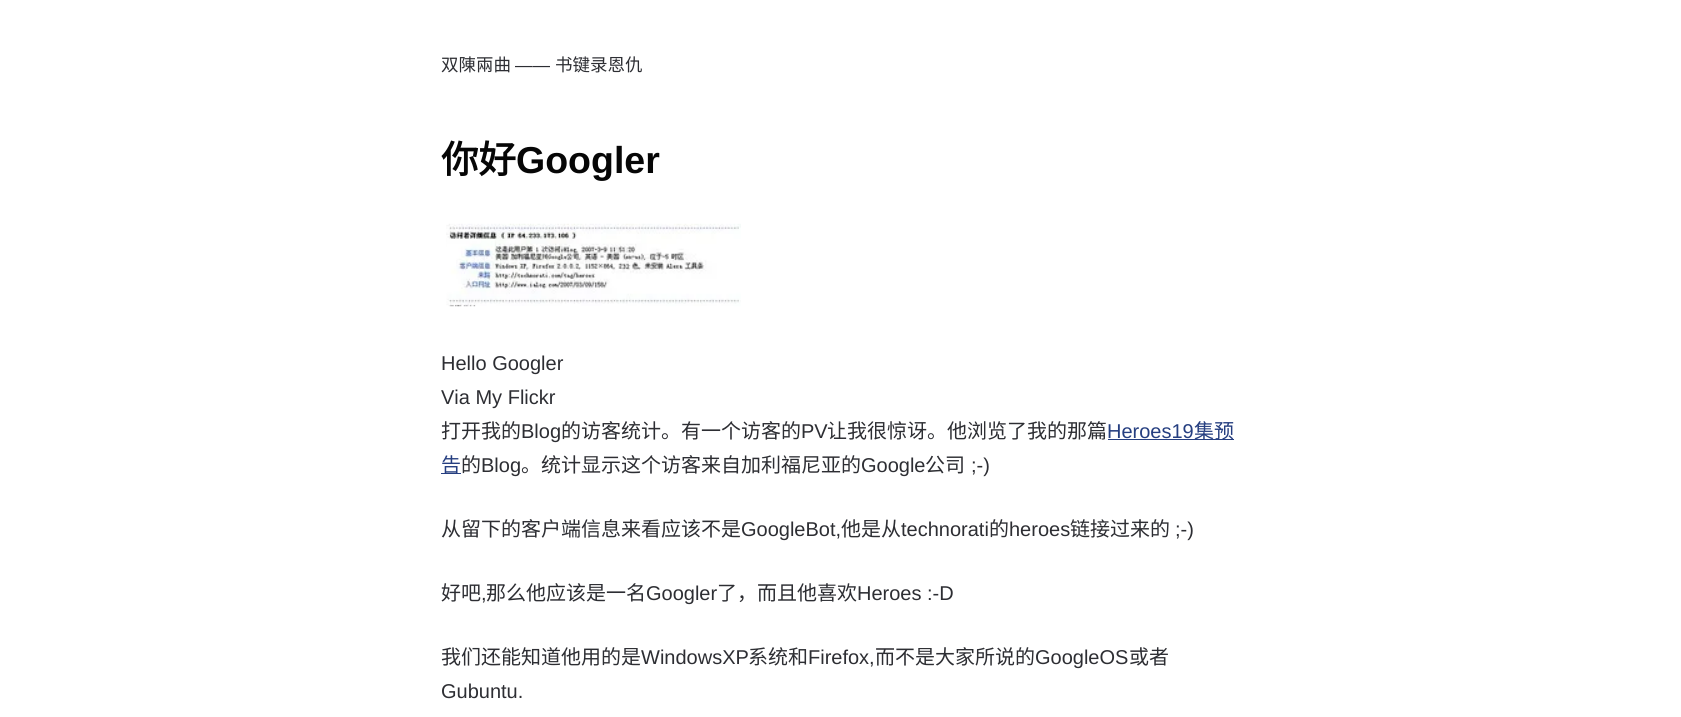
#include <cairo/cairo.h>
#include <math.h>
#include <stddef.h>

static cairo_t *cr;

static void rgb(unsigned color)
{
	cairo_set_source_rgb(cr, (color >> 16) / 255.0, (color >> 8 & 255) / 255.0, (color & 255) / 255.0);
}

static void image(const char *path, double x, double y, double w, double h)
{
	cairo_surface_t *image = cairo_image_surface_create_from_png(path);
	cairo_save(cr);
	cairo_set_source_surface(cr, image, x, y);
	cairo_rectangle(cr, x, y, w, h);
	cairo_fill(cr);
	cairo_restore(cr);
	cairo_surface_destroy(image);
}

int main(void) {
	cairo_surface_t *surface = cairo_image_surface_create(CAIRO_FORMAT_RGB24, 1681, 717);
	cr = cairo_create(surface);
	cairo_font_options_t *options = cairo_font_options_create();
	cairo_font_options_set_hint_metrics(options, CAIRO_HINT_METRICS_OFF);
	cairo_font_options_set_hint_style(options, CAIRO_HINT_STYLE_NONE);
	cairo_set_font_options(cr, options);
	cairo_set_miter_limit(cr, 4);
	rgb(0xffffff);
	cairo_paint(cr);
	image("img/1.png", 446, 223, 295, 84);
	rgb(0x253e80);
	cairo_rectangle(cr, 1108, 439, 126, 1);
	cairo_fill(cr);
	cairo_rectangle(cr, 441, 473, 20, 1);
	cairo_fill(cr);
	cairo_select_font_face(cr, "Noto Sans CJK SC", CAIRO_FONT_SLANT_NORMAL, CAIRO_FONT_WEIGHT_NORMAL);
	cairo_set_font_size(cr, 17.5);
	rgb(0x2d2e33);
	cairo_move_to(cr, 441, 71);
	cairo_show_text(cr, "双陳兩曲");
	cairo_select_font_face(cr, "Liberation Sans", CAIRO_FONT_SLANT_NORMAL, CAIRO_FONT_WEIGHT_NORMAL);
	cairo_move_to(cr, 515, 71);
	cairo_show_text(cr, "——");
	cairo_select_font_face(cr, "Noto Sans CJK SC", CAIRO_FONT_SLANT_NORMAL, CAIRO_FONT_WEIGHT_NORMAL);
	cairo_move_to(cr, 555, 71);
	cairo_show_text(cr, "书键录恩仇");
	cairo_select_font_face(cr, "Noto Sans CJK SC", CAIRO_FONT_SLANT_NORMAL, CAIRO_FONT_WEIGHT_BOLD);
	cairo_set_font_size(cr, 37.5);
	rgb(0x060606);
	cairo_move_to(cr, 441, 173);
	cairo_show_text(cr, "你好");
	cairo_select_font_face(cr, "Liberation Sans", CAIRO_FONT_SLANT_NORMAL, CAIRO_FONT_WEIGHT_BOLD);
	cairo_move_to(cr, 516, 173);
	cairo_show_text(cr, "Googler");
	cairo_select_font_face(cr, "Liberation Sans", CAIRO_FONT_SLANT_NORMAL, CAIRO_FONT_WEIGHT_NORMAL);
	cairo_set_font_size(cr, 20);
	rgb(0x2d2e33);
	cairo_move_to(cr, 441, 370);
	cairo_show_text(cr, "Hello Googler");
	cairo_move_to(cr, 441, 404);
	cairo_show_text(cr, "Via My Flickr");
	cairo_select_font_face(cr, "Noto Sans CJK SC", CAIRO_FONT_SLANT_NORMAL, CAIRO_FONT_WEIGHT_NORMAL);
	cairo_move_to(cr, 441, 438);
	cairo_show_text(cr, "打开我的");
	cairo_select_font_face(cr, "Liberation Sans", CAIRO_FONT_SLANT_NORMAL, CAIRO_FONT_WEIGHT_NORMAL);
	cairo_move_to(cr, 521, 438);
	cairo_show_text(cr, "Blog");
	cairo_select_font_face(cr, "Noto Sans CJK SC", CAIRO_FONT_SLANT_NORMAL, CAIRO_FONT_WEIGHT_NORMAL);
	cairo_move_to(cr, 561, 438);
	cairo_show_text(cr, "的访客统计。有一个访客的");
	cairo_select_font_face(cr, "Liberation Sans", CAIRO_FONT_SLANT_NORMAL, CAIRO_FONT_WEIGHT_NORMAL);
	cairo_move_to(cr, 801, 438);
	cairo_show_text(cr, "PV");
	cairo_select_font_face(cr, "Noto Sans CJK SC", CAIRO_FONT_SLANT_NORMAL, CAIRO_FONT_WEIGHT_NORMAL);
	cairo_move_to(cr, 827, 438);
	cairo_show_text(cr, "让我很惊讶。他浏览了我的那篇");
	cairo_select_font_face(cr, "Liberation Sans", CAIRO_FONT_SLANT_NORMAL, CAIRO_FONT_WEIGHT_NORMAL);
	rgb(0x253e80);
	cairo_move_to(cr, 1107, 438);
	cairo_show_text(cr, "Heroes19");
	cairo_select_font_face(cr, "Noto Sans CJK SC", CAIRO_FONT_SLANT_NORMAL, CAIRO_FONT_WEIGHT_NORMAL);
	cairo_move_to(cr, 1194, 438);
	cairo_show_text(cr, "集预");
	cairo_move_to(cr, 441, 472);
	cairo_show_text(cr, "告");
	rgb(0x2d2e33);
	cairo_move_to(cr, 461, 472);
	cairo_show_text(cr, "的");
	cairo_select_font_face(cr, "Liberation Sans", CAIRO_FONT_SLANT_NORMAL, CAIRO_FONT_WEIGHT_NORMAL);
	cairo_move_to(cr, 481, 472);
	cairo_show_text(cr, "Blog");
	cairo_select_font_face(cr, "Noto Sans CJK SC", CAIRO_FONT_SLANT_NORMAL, CAIRO_FONT_WEIGHT_NORMAL);
	cairo_move_to(cr, 521, 472);
	cairo_show_text(cr, "。统计显示这个访客来自加利福尼亚的");
	cairo_select_font_face(cr, "Liberation Sans", CAIRO_FONT_SLANT_NORMAL, CAIRO_FONT_WEIGHT_NORMAL);
	cairo_move_to(cr, 861, 472);
	cairo_show_text(cr, "Google");
	cairo_select_font_face(cr, "Noto Sans CJK SC", CAIRO_FONT_SLANT_NORMAL, CAIRO_FONT_WEIGHT_NORMAL);
	cairo_move_to(cr, 925, 472);
	cairo_show_text(cr, "公司");
	cairo_select_font_face(cr, "Liberation Sans", CAIRO_FONT_SLANT_NORMAL, CAIRO_FONT_WEIGHT_NORMAL);
	cairo_move_to(cr, 971, 472);
	cairo_show_text(cr, ";-)");
	cairo_select_font_face(cr, "Noto Sans CJK SC", CAIRO_FONT_SLANT_NORMAL, CAIRO_FONT_WEIGHT_NORMAL);
	cairo_move_to(cr, 441, 536);
	cairo_show_text(cr, "从留下的客户端信息来看应该不是");
	cairo_select_font_face(cr, "Liberation Sans", CAIRO_FONT_SLANT_NORMAL, CAIRO_FONT_WEIGHT_NORMAL);
	cairo_move_to(cr, 741, 536);
	cairo_show_text(cr, "GoogleBot,");
	cairo_select_font_face(cr, "Noto Sans CJK SC", CAIRO_FONT_SLANT_NORMAL, CAIRO_FONT_WEIGHT_NORMAL);
	cairo_move_to(cr, 841, 536);
	cairo_show_text(cr, "他是从");
	cairo_select_font_face(cr, "Liberation Sans", CAIRO_FONT_SLANT_NORMAL, CAIRO_FONT_WEIGHT_NORMAL);
	cairo_move_to(cr, 901, 536);
	cairo_show_text(cr, "technorati");
	cairo_select_font_face(cr, "Noto Sans CJK SC", CAIRO_FONT_SLANT_NORMAL, CAIRO_FONT_WEIGHT_NORMAL);
	cairo_move_to(cr, 989, 536);
	cairo_show_text(cr, "的");
	cairo_select_font_face(cr, "Liberation Sans", CAIRO_FONT_SLANT_NORMAL, CAIRO_FONT_WEIGHT_NORMAL);
	cairo_move_to(cr, 1009, 536);
	cairo_show_text(cr, "heroes");
	cairo_select_font_face(cr, "Noto Sans CJK SC", CAIRO_FONT_SLANT_NORMAL, CAIRO_FONT_WEIGHT_NORMAL);
	cairo_move_to(cr, 1070, 536);
	cairo_show_text(cr, "链接过来的");
	cairo_select_font_face(cr, "Liberation Sans", CAIRO_FONT_SLANT_NORMAL, CAIRO_FONT_WEIGHT_NORMAL);
	cairo_move_to(cr, 1175, 536);
	cairo_show_text(cr, ";-)");
	cairo_select_font_face(cr, "Noto Sans CJK SC", CAIRO_FONT_SLANT_NORMAL, CAIRO_FONT_WEIGHT_NORMAL);
	cairo_move_to(cr, 441, 600);
	cairo_show_text(cr, "好吧");
	cairo_select_font_face(cr, "Liberation Sans", CAIRO_FONT_SLANT_NORMAL, CAIRO_FONT_WEIGHT_NORMAL);
	cairo_move_to(cr, 481, 600);
	cairo_show_text(cr, ",");
	cairo_select_font_face(cr, "Noto Sans CJK SC", CAIRO_FONT_SLANT_NORMAL, CAIRO_FONT_WEIGHT_NORMAL);
	cairo_move_to(cr, 486, 600);
	cairo_show_text(cr, "那么他应该是一名");
	cairo_select_font_face(cr, "Liberation Sans", CAIRO_FONT_SLANT_NORMAL, CAIRO_FONT_WEIGHT_NORMAL);
	cairo_move_to(cr, 646, 600);
	cairo_show_text(cr, "Googler");
	cairo_select_font_face(cr, "Noto Sans CJK SC", CAIRO_FONT_SLANT_NORMAL, CAIRO_FONT_WEIGHT_NORMAL);
	cairo_move_to(cr, 717, 600);
	cairo_show_text(cr, "了，而且他喜欢");
	cairo_select_font_face(cr, "Liberation Sans", CAIRO_FONT_SLANT_NORMAL, CAIRO_FONT_WEIGHT_NORMAL);
	cairo_move_to(cr, 857, 600);
	cairo_show_text(cr, "Heroes :-D");
	cairo_select_font_face(cr, "Noto Sans CJK SC", CAIRO_FONT_SLANT_NORMAL, CAIRO_FONT_WEIGHT_NORMAL);
	cairo_move_to(cr, 441, 664);
	cairo_show_text(cr, "我们还能知道他用的是");
	cairo_select_font_face(cr, "Liberation Sans", CAIRO_FONT_SLANT_NORMAL, CAIRO_FONT_WEIGHT_NORMAL);
	cairo_move_to(cr, 641, 664);
	cairo_show_text(cr, "WindowsXP");
	cairo_select_font_face(cr, "Noto Sans CJK SC", CAIRO_FONT_SLANT_NORMAL, CAIRO_FONT_WEIGHT_NORMAL);
	cairo_move_to(cr, 748, 664);
	cairo_show_text(cr, "系统和");
	cairo_select_font_face(cr, "Liberation Sans", CAIRO_FONT_SLANT_NORMAL, CAIRO_FONT_WEIGHT_NORMAL);
	cairo_move_to(cr, 808, 664);
	cairo_show_text(cr, "Firefox,");
	cairo_select_font_face(cr, "Noto Sans CJK SC", CAIRO_FONT_SLANT_NORMAL, CAIRO_FONT_WEIGHT_NORMAL);
	cairo_move_to(cr, 875, 664);
	cairo_show_text(cr, "而不是大家所说的");
	cairo_select_font_face(cr, "Liberation Sans", CAIRO_FONT_SLANT_NORMAL, CAIRO_FONT_WEIGHT_NORMAL);
	cairo_move_to(cr, 1035, 664);
	cairo_show_text(cr, "GoogleOS");
	cairo_select_font_face(cr, "Noto Sans CJK SC", CAIRO_FONT_SLANT_NORMAL, CAIRO_FONT_WEIGHT_NORMAL);
	cairo_move_to(cr, 1129, 664);
	cairo_show_text(cr, "或者");
	cairo_select_font_face(cr, "Liberation Sans", CAIRO_FONT_SLANT_NORMAL, CAIRO_FONT_WEIGHT_NORMAL);
	cairo_move_to(cr, 441, 698);
	cairo_show_text(cr, "Gubuntu.");
	cairo_surface_write_to_png(surface, "page.png");
	cairo_font_options_destroy(options);
	cairo_destroy(cr);
	cairo_surface_destroy(surface);
	return 0;
}
